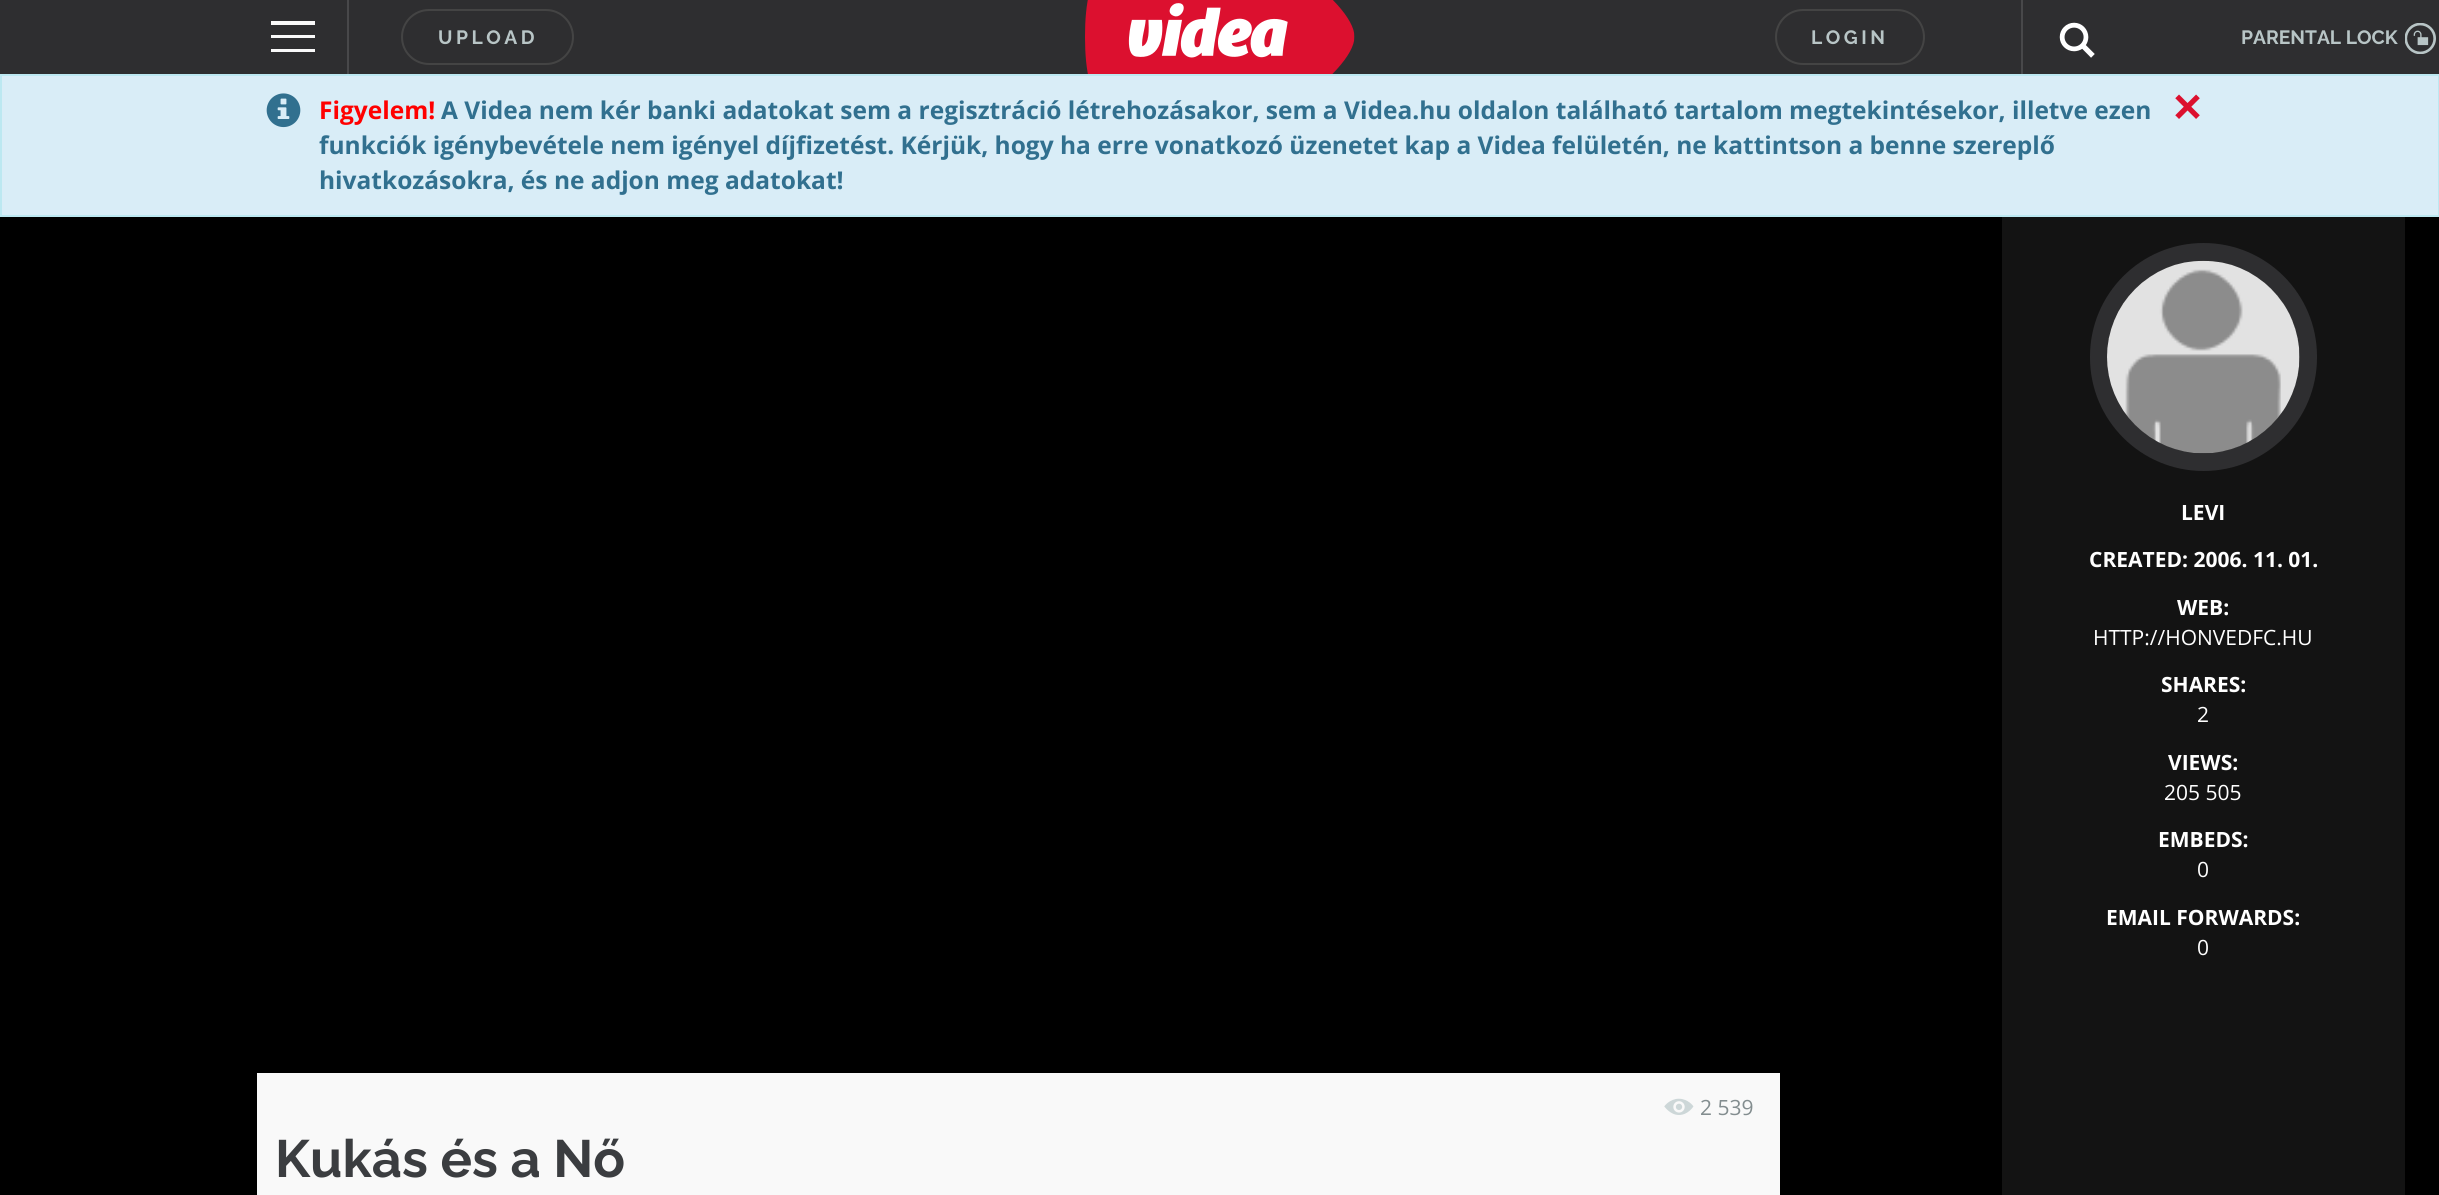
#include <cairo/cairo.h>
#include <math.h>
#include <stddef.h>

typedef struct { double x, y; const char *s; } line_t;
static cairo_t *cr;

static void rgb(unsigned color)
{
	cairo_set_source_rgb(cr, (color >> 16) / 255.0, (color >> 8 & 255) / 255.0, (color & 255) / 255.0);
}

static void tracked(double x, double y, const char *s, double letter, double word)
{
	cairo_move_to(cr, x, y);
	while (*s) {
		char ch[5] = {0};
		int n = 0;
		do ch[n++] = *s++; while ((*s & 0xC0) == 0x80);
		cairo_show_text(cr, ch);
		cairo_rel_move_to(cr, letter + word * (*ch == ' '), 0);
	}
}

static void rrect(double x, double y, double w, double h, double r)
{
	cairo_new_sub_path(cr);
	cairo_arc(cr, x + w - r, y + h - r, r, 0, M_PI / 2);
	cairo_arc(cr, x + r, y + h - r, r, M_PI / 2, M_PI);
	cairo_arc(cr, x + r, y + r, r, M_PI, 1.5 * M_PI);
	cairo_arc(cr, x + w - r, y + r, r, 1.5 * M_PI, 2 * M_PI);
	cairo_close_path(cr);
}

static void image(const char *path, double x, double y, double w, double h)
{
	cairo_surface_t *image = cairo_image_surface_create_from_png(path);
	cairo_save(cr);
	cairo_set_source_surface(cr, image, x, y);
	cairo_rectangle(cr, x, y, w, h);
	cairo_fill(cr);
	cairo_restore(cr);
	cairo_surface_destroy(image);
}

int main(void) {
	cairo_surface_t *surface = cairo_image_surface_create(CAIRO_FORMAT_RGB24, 2439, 1195);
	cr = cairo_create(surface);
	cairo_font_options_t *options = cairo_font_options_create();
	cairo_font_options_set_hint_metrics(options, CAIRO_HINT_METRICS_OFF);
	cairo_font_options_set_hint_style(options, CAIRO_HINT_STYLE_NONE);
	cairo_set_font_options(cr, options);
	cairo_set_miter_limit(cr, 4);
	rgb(0xd9edf7);
	cairo_paint(cr);
	rgb(0x2e2e30);
	cairo_rectangle(cr, 0, 0, 2439, 74);
	cairo_fill(cr);
	image("img/1.png", 1085, 0, 270, 74);
	rgb(0x48484a);
	cairo_rectangle(cr, 347, 0, 2, 74);
	cairo_fill(cr);
	rgb(0xf9f9f9);
	cairo_new_path(cr);
	cairo_move_to(cr, 271, 49);
	cairo_line_to(cr, 271, 52);
	cairo_line_to(cr, 315, 52);
	cairo_line_to(cr, 315, 49);
	cairo_close_path(cr);
	cairo_move_to(cr, 271, 35);
	cairo_line_to(cr, 271, 38);
	cairo_line_to(cr, 315, 38);
	cairo_line_to(cr, 315, 35);
	cairo_close_path(cr);
	cairo_move_to(cr, 271, 21);
	cairo_line_to(cr, 271, 25);
	cairo_line_to(cr, 315, 25);
	cairo_line_to(cr, 315, 21);
	cairo_close_path(cr);
	cairo_fill(cr);
	rrect(402, 10, 171, 54, 27);
	rgb(0x444444);
	cairo_stroke(cr);
	rrect(1776, 10, 148, 54, 27);
	cairo_stroke(cr);
	rgb(0x48484a);
	cairo_rectangle(cr, 2021, 0, 2, 74);
	cairo_fill(cr);
	image("img/2.png", 2059, 22, 36, 36);
	image("img/3.png", 2405, 23, 31, 31);
	cairo_rectangle(cr, 1, 75, 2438, 141);
	rgb(0xbce8f1);
	cairo_stroke(cr);
	image("img/4.png", 266, 93, 35, 35);
	image("img/5.png", 2175, 94, 25, 25);
	rgb(0x000000);
	cairo_rectangle(cr, 0, 217, 2439, 978);
	cairo_fill(cr);
	rgb(0x131313);
	cairo_rectangle(cr, 2002, 217, 403, 978);
	cairo_fill(cr);
	rrect(2099, 252, 209, 210, 104.5);
	rgb(0x2e2e30);
	cairo_set_line_width(cr, 18);
	cairo_stroke(cr);
	image("img/6.png", 2107, 260, 193, 194);
	rgb(0xf9f9f9);
	cairo_rectangle(cr, 257, 1073, 1523, 122);
	cairo_fill(cr);
	image("img/7.png", 1664, 1098, 30, 17);
	cairo_select_font_face(cr, "Raleway", CAIRO_FONT_SLANT_NORMAL, CAIRO_FONT_WEIGHT_BOLD);
	cairo_set_font_size(cr, 19.25);
	rgb(0xb8c5c6);
	tracked(438, 44, "UPLOAD", 3.5, 0);
	tracked(1811, 44, "LOGIN", 3.5, 0);
	cairo_move_to(cr, 2241, 44);
	cairo_show_text(cr, "PARENTAL LOCK");
	cairo_select_font_face(cr, "Open Sans", CAIRO_FONT_SLANT_NORMAL, CAIRO_FONT_WEIGHT_BOLD);
	cairo_set_font_size(cr, 24.5);
	rgb(0xff0000);
	cairo_move_to(cr, 319, 119);
	cairo_show_text(cr, "Figyelem!");
	rgb(0x31708f);
	{
		static const line_t items[] = {
			{441, 119, "A Videa nem kér banki adatokat sem a regisztráció létrehozásakor, sem a Videa.hu oldalon található tartalom megtekintésekor, illetve ezen"},
			{319, 154, "funkciók igénybevétele nem igényel díjfizetést. Kérjük, hogy ha erre vonatkozó üzenetet kap a Videa felületén, ne kattintson a benne szereplő"},
			{319, 189, "hivatkozásokra, és ne adjon meg adatokat!"},
		};
		for (size_t i = 0; i < sizeof items / sizeof *items; i++) {
			cairo_move_to(cr, items[i].x, items[i].y);
			cairo_show_text(cr, items[i].s);
		}
	}
	cairo_set_font_size(cr, 21);
	rgb(0xffffff);
	{
		static const line_t items[] = {
			{2181, 520, "LEVI"},
			{2089, 567, "CREATED: 2006. 11. 01."},
			{2177, 615, "WEB:"},
		};
		for (size_t i = 0; i < sizeof items / sizeof *items; i++) {
			cairo_move_to(cr, items[i].x, items[i].y);
			cairo_show_text(cr, items[i].s);
		}
	}
	cairo_select_font_face(cr, "Open Sans", CAIRO_FONT_SLANT_NORMAL, CAIRO_FONT_WEIGHT_NORMAL);
	cairo_move_to(cr, 2093, 645);
	cairo_show_text(cr, "HTTP://HONVEDFC.HU");
	cairo_select_font_face(cr, "Open Sans", CAIRO_FONT_SLANT_NORMAL, CAIRO_FONT_WEIGHT_BOLD);
	cairo_move_to(cr, 2161, 692);
	cairo_show_text(cr, "SHARES:");
	cairo_select_font_face(cr, "Open Sans", CAIRO_FONT_SLANT_NORMAL, CAIRO_FONT_WEIGHT_NORMAL);
	cairo_move_to(cr, 2197, 722);
	cairo_show_text(cr, "2");
	cairo_select_font_face(cr, "Open Sans", CAIRO_FONT_SLANT_NORMAL, CAIRO_FONT_WEIGHT_BOLD);
	cairo_move_to(cr, 2168, 770);
	cairo_show_text(cr, "VIEWS:");
	cairo_select_font_face(cr, "Open Sans", CAIRO_FONT_SLANT_NORMAL, CAIRO_FONT_WEIGHT_NORMAL);
	cairo_move_to(cr, 2164, 800);
	cairo_show_text(cr, "205 505");
	cairo_select_font_face(cr, "Open Sans", CAIRO_FONT_SLANT_NORMAL, CAIRO_FONT_WEIGHT_BOLD);
	cairo_move_to(cr, 2158, 847);
	cairo_show_text(cr, "EMBEDS:");
	cairo_select_font_face(cr, "Open Sans", CAIRO_FONT_SLANT_NORMAL, CAIRO_FONT_WEIGHT_NORMAL);
	cairo_move_to(cr, 2197, 877);
	cairo_show_text(cr, "0");
	cairo_select_font_face(cr, "Open Sans", CAIRO_FONT_SLANT_NORMAL, CAIRO_FONT_WEIGHT_BOLD);
	cairo_move_to(cr, 2106, 925);
	cairo_show_text(cr, "EMAIL FORWARDS:");
	cairo_select_font_face(cr, "Open Sans", CAIRO_FONT_SLANT_NORMAL, CAIRO_FONT_WEIGHT_NORMAL);
	cairo_move_to(cr, 2197, 955);
	cairo_show_text(cr, "0");
	rgb(0x838d8f);
	cairo_move_to(cr, 1700, 1115);
	cairo_show_text(cr, "2 539");
	cairo_select_font_face(cr, "Raleway", CAIRO_FONT_SLANT_NORMAL, CAIRO_FONT_WEIGHT_BOLD);
	cairo_set_font_size(cr, 52.5);
	rgb(0x3b3d40);
	cairo_move_to(cr, 275, 1177);
	cairo_show_text(cr, "Kukás és a Nő");
	cairo_surface_write_to_png(surface, "page.png");
	cairo_font_options_destroy(options);
	cairo_destroy(cr);
	cairo_surface_destroy(surface);
	return 0;
}
